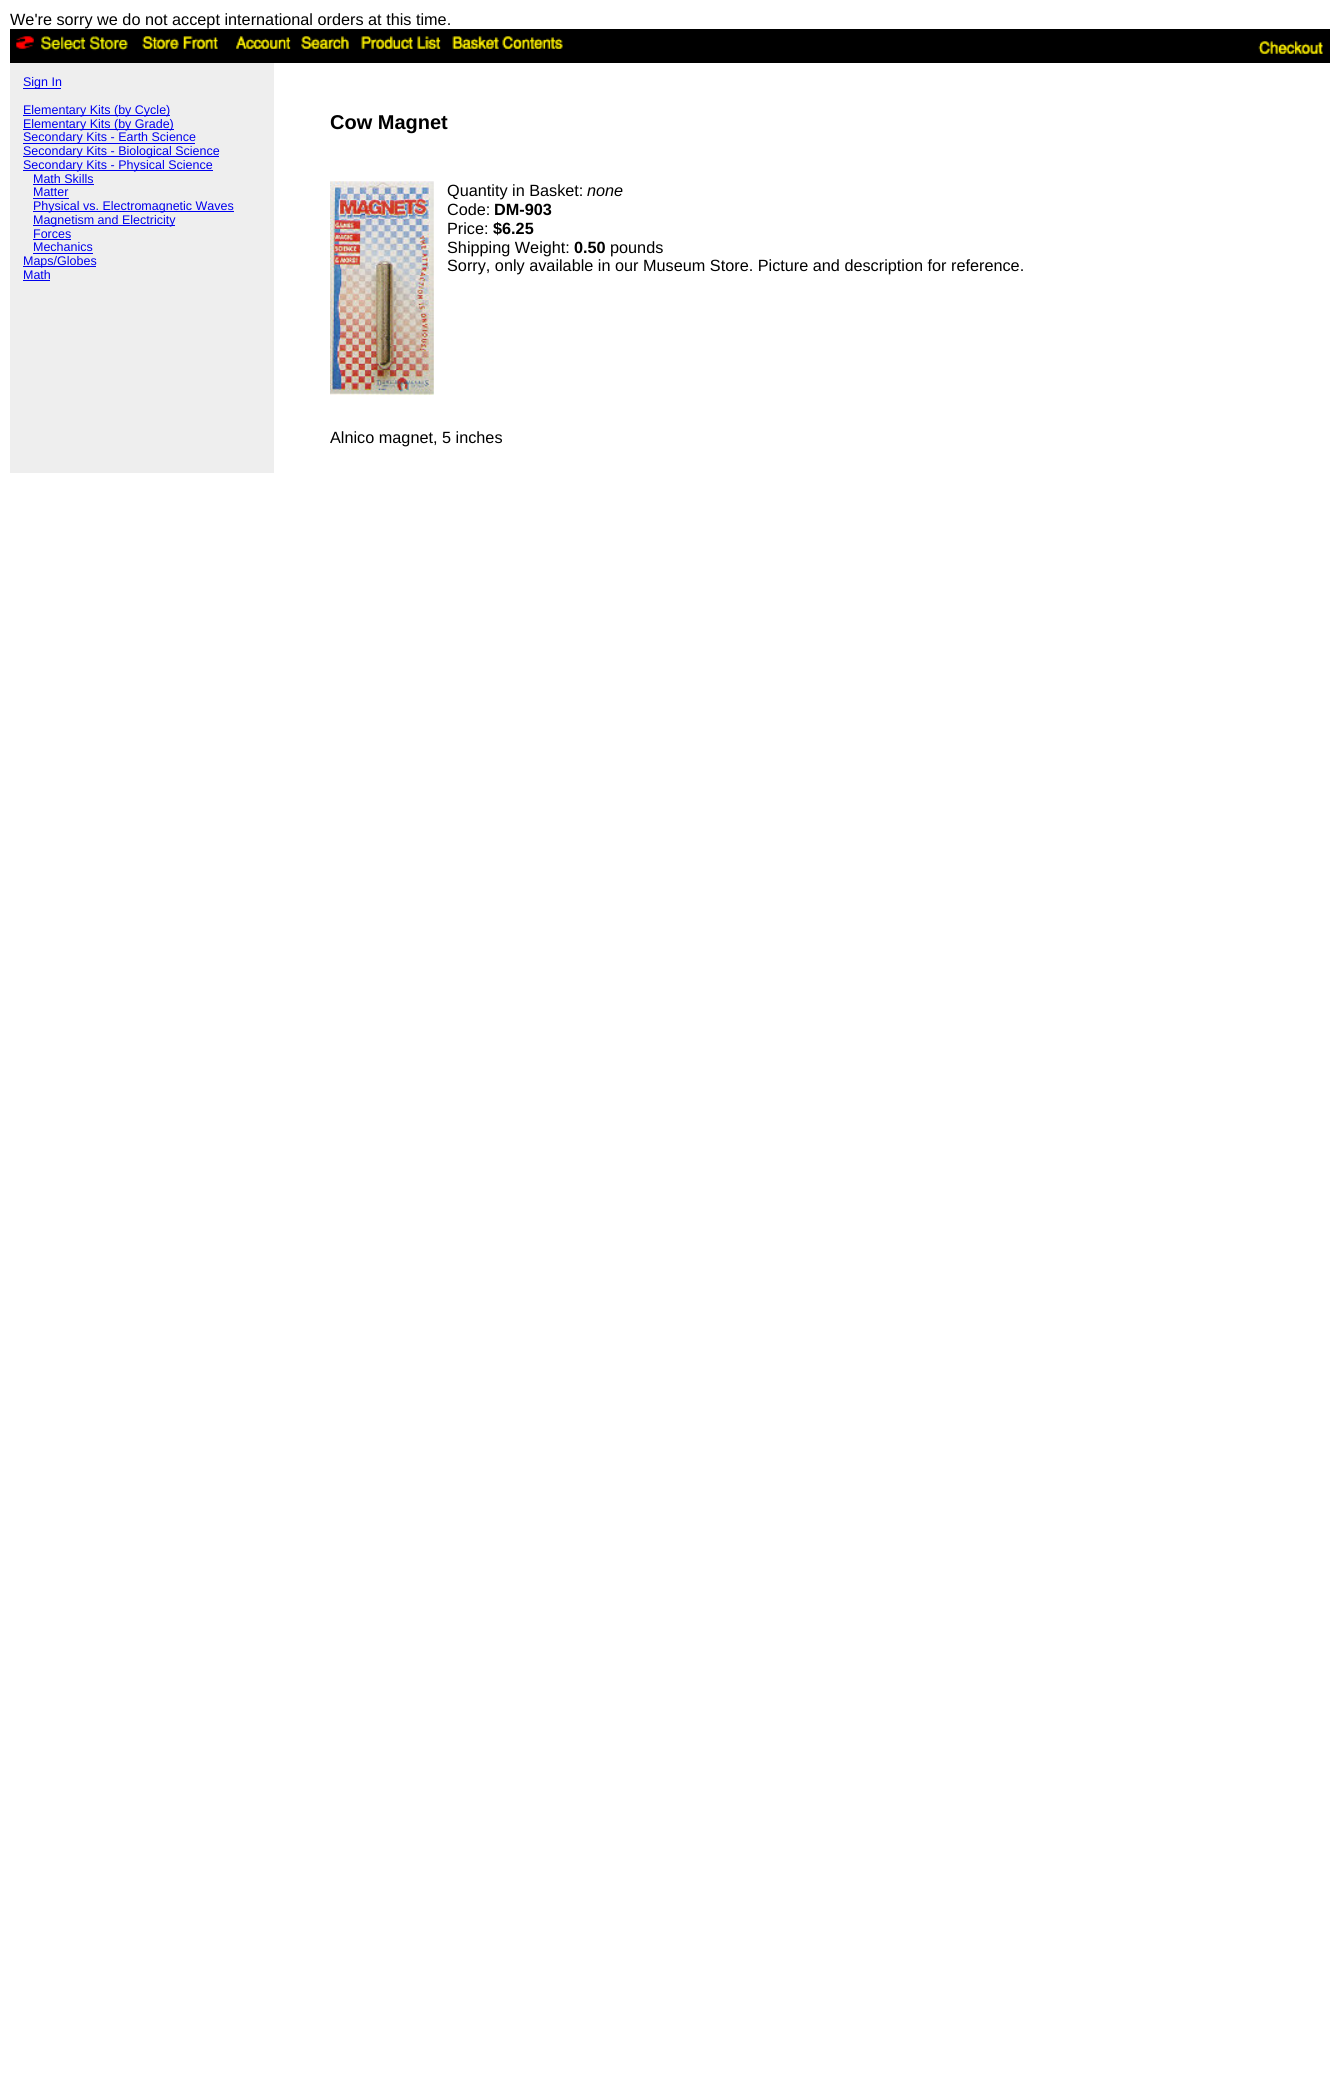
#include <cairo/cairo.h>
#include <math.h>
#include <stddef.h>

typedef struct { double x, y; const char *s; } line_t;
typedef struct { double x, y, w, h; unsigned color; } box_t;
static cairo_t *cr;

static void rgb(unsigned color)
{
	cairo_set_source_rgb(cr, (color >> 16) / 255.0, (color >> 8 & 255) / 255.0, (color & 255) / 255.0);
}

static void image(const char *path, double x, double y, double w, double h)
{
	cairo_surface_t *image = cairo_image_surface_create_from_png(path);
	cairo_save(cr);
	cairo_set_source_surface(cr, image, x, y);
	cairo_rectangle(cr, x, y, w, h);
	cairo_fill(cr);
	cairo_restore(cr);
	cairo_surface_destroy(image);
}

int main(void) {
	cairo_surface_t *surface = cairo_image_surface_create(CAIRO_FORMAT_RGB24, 1340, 2094);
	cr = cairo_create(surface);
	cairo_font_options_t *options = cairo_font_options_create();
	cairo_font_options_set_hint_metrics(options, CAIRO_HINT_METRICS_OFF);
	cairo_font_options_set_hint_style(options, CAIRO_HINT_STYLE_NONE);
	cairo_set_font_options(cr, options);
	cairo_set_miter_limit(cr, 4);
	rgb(0xffffff);
	cairo_paint(cr);
	rgb(0x000000);
	cairo_rectangle(cr, 10, 29, 1320, 34);
	cairo_fill(cr);
	image("img/1.png", 16, 36, 18, 13);
	image("img/2.png", 41, 36, 87, 15);
	image("img/3.png", 142, 36, 76, 13);
	image("img/4.png", 236, 36, 55, 13);
	image("img/5.png", 301, 36, 48, 13);
	image("img/6.png", 361, 36, 80, 13);
	image("img/7.png", 452, 36, 111, 13);
	image("img/8.png", 1258, 41, 65, 13);
	{
		static const box_t items[] = {
			{10, 63, 264, 410, 0xeeeeee},
			{23, 88, 38, 1, 0x0000ee},
			{23, 115, 147, 1, 0x0000ee},
			{23, 129, 151, 1, 0x0000ee},
			{23, 143, 172, 1, 0x0000ee},
			{23, 156, 196, 1, 0x0000ee},
			{23, 170, 190, 1, 0x0000ee},
			{33, 184, 61, 1, 0x0000ee},
			{33, 198, 36, 1, 0x0000ee},
			{33, 211, 201, 1, 0x0000ee},
			{33, 225, 142, 1, 0x0000ee},
			{33, 239, 38, 1, 0x0000ee},
			{33, 253, 60, 1, 0x0000ee},
			{23, 266, 73, 1, 0x0000ee},
			{23, 280, 27, 1, 0x0000ee},
		};
		for (size_t i = 0; i < sizeof items / sizeof *items; i++) {
			rgb(items[i].color);
			cairo_rectangle(cr, items[i].x, items[i].y, items[i].w, items[i].h);
			cairo_fill(cr);
		}
	}
	image("img/9.png", 330, 181, 104, 214);
	cairo_select_font_face(cr, "Liberation Sans", CAIRO_FONT_SLANT_NORMAL, CAIRO_FONT_WEIGHT_NORMAL);
	cairo_set_font_size(cr, 16.25);
	rgb(0x000000);
	cairo_move_to(cr, 10, 25);
	cairo_show_text(cr, "We're sorry we do not accept international orders at this time.");
	cairo_set_font_size(cr, 12.5);
	rgb(0x0000ee);
	{
		static const line_t items[] = {
			{23, 86, "Sign In"},
			{23, 114, "Elementary Kits (by Cycle)"},
			{23, 128, "Elementary Kits (by Grade)"},
			{23, 141, "Secondary Kits - Earth Science"},
			{23, 155, "Secondary Kits - Biological Science"},
			{23, 169, "Secondary Kits - Physical Science"},
			{33, 183, "Math Skills"},
			{33, 196, "Matter"},
			{33, 210, "Physical vs. Electromagnetic Waves"},
			{33, 224, "Magnetism and Electricity"},
			{33, 238, "Forces"},
			{33, 251, "Mechanics"},
			{23, 265, "Maps/Globes"},
			{23, 279, "Math"},
		};
		for (size_t i = 0; i < sizeof items / sizeof *items; i++) {
			cairo_move_to(cr, items[i].x, items[i].y);
			cairo_show_text(cr, items[i].s);
		}
	}
	cairo_select_font_face(cr, "Liberation Sans", CAIRO_FONT_SLANT_NORMAL, CAIRO_FONT_WEIGHT_BOLD);
	cairo_set_font_size(cr, 20);
	rgb(0x000000);
	cairo_move_to(cr, 330, 129);
	cairo_show_text(cr, "Cow Magnet");
	cairo_select_font_face(cr, "Liberation Sans", CAIRO_FONT_SLANT_NORMAL, CAIRO_FONT_WEIGHT_NORMAL);
	cairo_set_font_size(cr, 16.25);
	cairo_move_to(cr, 447, 196);
	cairo_show_text(cr, "Quantity in Basket:");
	cairo_select_font_face(cr, "Liberation Sans", CAIRO_FONT_SLANT_ITALIC, CAIRO_FONT_WEIGHT_NORMAL);
	cairo_move_to(cr, 587, 196);
	cairo_show_text(cr, "none");
	cairo_select_font_face(cr, "Liberation Sans", CAIRO_FONT_SLANT_NORMAL, CAIRO_FONT_WEIGHT_NORMAL);
	cairo_move_to(cr, 447, 215);
	cairo_show_text(cr, "Code:");
	cairo_select_font_face(cr, "Liberation Sans", CAIRO_FONT_SLANT_NORMAL, CAIRO_FONT_WEIGHT_BOLD);
	cairo_move_to(cr, 494, 215);
	cairo_show_text(cr, "DM-903");
	cairo_select_font_face(cr, "Liberation Sans", CAIRO_FONT_SLANT_NORMAL, CAIRO_FONT_WEIGHT_NORMAL);
	cairo_move_to(cr, 447, 234);
	cairo_show_text(cr, "Price:");
	cairo_select_font_face(cr, "Liberation Sans", CAIRO_FONT_SLANT_NORMAL, CAIRO_FONT_WEIGHT_BOLD);
	cairo_move_to(cr, 493, 234);
	cairo_show_text(cr, "$6.25");
	cairo_select_font_face(cr, "Liberation Sans", CAIRO_FONT_SLANT_NORMAL, CAIRO_FONT_WEIGHT_NORMAL);
	cairo_move_to(cr, 447, 253);
	cairo_show_text(cr, "Shipping Weight:");
	cairo_select_font_face(cr, "Liberation Sans", CAIRO_FONT_SLANT_NORMAL, CAIRO_FONT_WEIGHT_BOLD);
	cairo_move_to(cr, 574, 253);
	cairo_show_text(cr, "0.50");
	cairo_select_font_face(cr, "Liberation Sans", CAIRO_FONT_SLANT_NORMAL, CAIRO_FONT_WEIGHT_NORMAL);
	{
		static const line_t items[] = {
			{610, 253, "pounds"},
			{447, 271, "Sorry, only available in our Museum Store. Picture and description for reference."},
			{330, 443, "Alnico magnet, 5 inches"},
		};
		for (size_t i = 0; i < sizeof items / sizeof *items; i++) {
			cairo_move_to(cr, items[i].x, items[i].y);
			cairo_show_text(cr, items[i].s);
		}
	}
	cairo_surface_write_to_png(surface, "page.png");
	cairo_font_options_destroy(options);
	cairo_destroy(cr);
	cairo_surface_destroy(surface);
	return 0;
}
